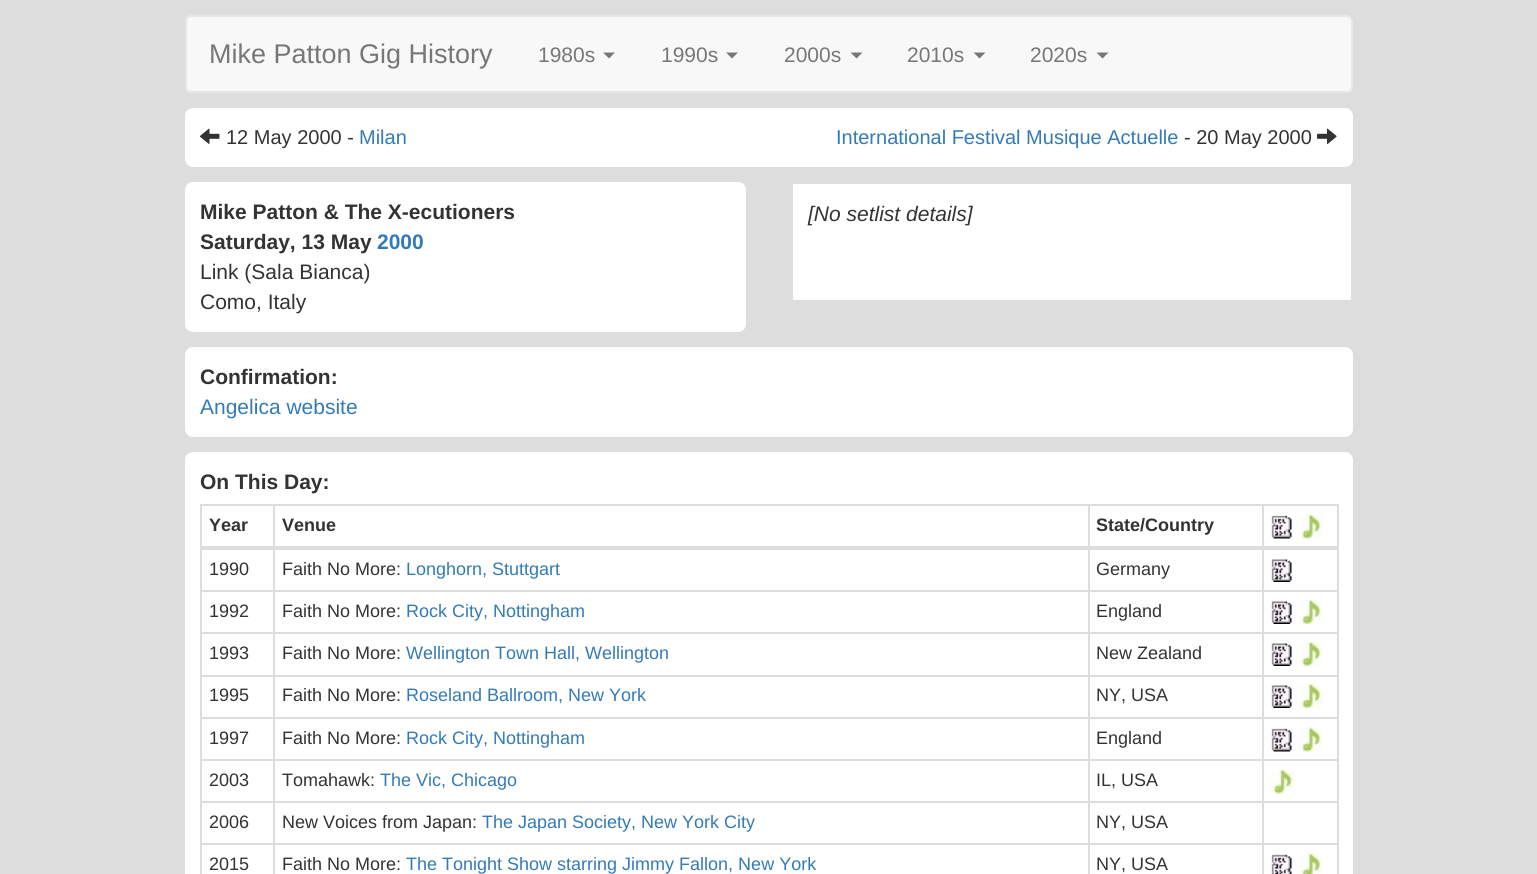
#include <cairo/cairo.h>
#include <math.h>
#include <stddef.h>

typedef struct { double x, y; const char *s; } line_t;
typedef struct { double x, y, w, h; unsigned color; } box_t;
static cairo_t *cr;

static void rgb(unsigned color)
{
	cairo_set_source_rgb(cr, (color >> 16) / 255.0, (color >> 8 & 255) / 255.0, (color & 255) / 255.0);
}

static void rrect(double x, double y, double w, double h, double r)
{
	cairo_new_sub_path(cr);
	cairo_arc(cr, x + w - r, y + h - r, r, 0, M_PI / 2);
	cairo_arc(cr, x + r, y + h - r, r, M_PI / 2, M_PI);
	cairo_arc(cr, x + r, y + r, r, M_PI, 1.5 * M_PI);
	cairo_arc(cr, x + w - r, y + r, r, 1.5 * M_PI, 2 * M_PI);
	cairo_close_path(cr);
}

static void image(const char *path, double x, double y, double w, double h)
{
	cairo_surface_t *image = cairo_image_surface_create_from_png(path);
	cairo_save(cr);
	cairo_set_source_surface(cr, image, x, y);
	cairo_rectangle(cr, x, y, w, h);
	cairo_fill(cr);
	cairo_restore(cr);
	cairo_surface_destroy(image);
}

int main(void) {
	cairo_surface_t *surface = cairo_image_surface_create(CAIRO_FORMAT_RGB24, 1537, 874);
	cr = cairo_create(surface);
	cairo_font_options_t *options = cairo_font_options_create();
	cairo_font_options_set_hint_metrics(options, CAIRO_HINT_METRICS_OFF);
	cairo_font_options_set_hint_style(options, CAIRO_HINT_STYLE_NONE);
	cairo_set_font_options(cr, options);
	cairo_set_miter_limit(cr, 4);
	rgb(0xdddddd);
	cairo_paint(cr);
	rgb(0xf8f8f8);
	rrect(186, 16, 1166, 76, 5);
	cairo_fill_preserve(cr);
	rgb(0xe7e7e7);
	cairo_stroke(cr);
	rgb(0x777777);
	cairo_new_path(cr);
	cairo_move_to(cr, 603, 52.5);
	cairo_line_to(cr, 615, 52.5);
	cairo_line_to(cr, 609, 58.5);
	cairo_close_path(cr);
	cairo_fill(cr);
	cairo_new_path(cr);
	cairo_move_to(cr, 726, 52.5);
	cairo_line_to(cr, 738, 52.5);
	cairo_line_to(cr, 732, 58.5);
	cairo_close_path(cr);
	cairo_fill(cr);
	cairo_new_path(cr);
	cairo_move_to(cr, 850.5, 52.5);
	cairo_line_to(cr, 862.5, 52.5);
	cairo_line_to(cr, 856.5, 58.5);
	cairo_close_path(cr);
	cairo_fill(cr);
	cairo_new_path(cr);
	cairo_move_to(cr, 973.5, 52.5);
	cairo_line_to(cr, 985.5, 52.5);
	cairo_line_to(cr, 979.5, 58.5);
	cairo_close_path(cr);
	cairo_fill(cr);
	cairo_new_path(cr);
	cairo_move_to(cr, 1096.5, 52.5);
	cairo_line_to(cr, 1108.5, 52.5);
	cairo_line_to(cr, 1102.5, 58.5);
	cairo_close_path(cr);
	cairo_fill(cr);
	rgb(0xffffff);
	rrect(185, 108, 1168, 59, 8);
	cairo_fill(cr);
	image("img/1.png", 199, 128, 21, 17);
	image("img/2.png", 1317, 128, 20, 17);
	rrect(185, 182, 561, 150, 8);
	cairo_fill(cr);
	cairo_rectangle(cr, 793, 184, 558, 116);
	cairo_fill(cr);
	rrect(185, 347, 1168, 90, 8);
	cairo_fill(cr);
	rrect(185, 452, 1168, 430, 8);
	cairo_fill(cr);
	{
		static const box_t items[] = {
			{200, 504, 1138, 2, 0xdddddd},
			{1337, 504, 2, 370, 0xdddddd},
			{200, 504, 2, 370, 0xdddddd},
			{1262, 549, 76, 1, 0xdddddd},
			{1262, 590, 76, 2, 0xdddddd},
			{1262, 632, 76, 2, 0xdddddd},
			{1262, 675, 76, 2, 0xdddddd},
			{1262, 717, 76, 2, 0xdddddd},
			{1262, 759, 76, 2, 0xdddddd},
			{1262, 801, 76, 2, 0xdddddd},
			{1262, 843, 76, 2, 0xdddddd},
			{1262, 843, 2, 31, 0xdddddd},
			{1088, 843, 175, 2, 0xdddddd},
			{1262, 801, 2, 44, 0xdddddd},
			{1088, 801, 175, 2, 0xdddddd},
			{1262, 759, 2, 44, 0xdddddd},
			{1088, 759, 175, 2, 0xdddddd},
			{1262, 717, 2, 44, 0xdddddd},
			{1088, 717, 175, 2, 0xdddddd},
			{1262, 675, 2, 44, 0xdddddd},
			{1088, 675, 175, 2, 0xdddddd},
			{1262, 632, 2, 45, 0xdddddd},
			{1088, 632, 175, 2, 0xdddddd},
			{1262, 590, 2, 43, 0xdddddd},
			{1088, 590, 175, 2, 0xdddddd},
			{1262, 504, 2, 87, 0xdddddd},
			{1088, 549, 175, 1, 0xdddddd},
			{1088, 843, 2, 31, 0xdddddd},
			{273, 843, 816, 2, 0xdddddd},
			{1088, 801, 2, 44, 0xdddddd},
			{273, 801, 816, 2, 0xdddddd},
			{1088, 759, 2, 44, 0xdddddd},
			{273, 759, 816, 2, 0xdddddd},
			{1088, 717, 2, 44, 0xdddddd},
			{273, 717, 816, 2, 0xdddddd},
			{1088, 675, 2, 44, 0xdddddd},
			{273, 675, 816, 2, 0xdddddd},
			{1088, 632, 2, 45, 0xdddddd},
			{273, 632, 816, 2, 0xdddddd},
			{1088, 590, 2, 43, 0xdddddd},
			{273, 590, 816, 2, 0xdddddd},
			{1088, 504, 2, 87, 0xdddddd},
			{273, 549, 816, 1, 0xdddddd},
			{273, 843, 2, 31, 0xdddddd},
			{200, 843, 75, 2, 0xdddddd},
			{273, 801, 2, 44, 0xdddddd},
			{200, 801, 75, 2, 0xdddddd},
			{273, 759, 2, 44, 0xdddddd},
			{200, 759, 75, 2, 0xdddddd},
			{273, 717, 2, 44, 0xdddddd},
			{200, 717, 75, 2, 0xdddddd},
			{273, 675, 2, 44, 0xdddddd},
			{200, 675, 75, 2, 0xdddddd},
			{273, 632, 2, 45, 0xdddddd},
			{200, 632, 75, 2, 0xdddddd},
			{273, 590, 2, 43, 0xdddddd},
			{200, 590, 75, 2, 0xdddddd},
			{273, 504, 2, 87, 0xdddddd},
			{200, 546, 1138, 3, 0xdddddd},
		};
		for (size_t i = 0; i < sizeof items / sizeof *items; i++) {
			rgb(items[i].color);
			cairo_rectangle(cr, items[i].x, items[i].y, items[i].w, items[i].h);
			cairo_fill(cr);
		}
	}
	image("img/3.png", 1271, 515, 21, 24);
	image("img/4.png", 1299, 514, 24, 25);
	cairo_rectangle(cr, 200, 549, 75, 1);
	cairo_fill(cr);
	image("img/5.png", 1271, 559, 21, 23);
	image("img/5.png", 1271, 601, 21, 23);
	image("img/6.png", 1299, 600, 24, 24);
	image("img/5.png", 1271, 643, 21, 23);
	image("img/6.png", 1299, 642, 24, 24);
	image("img/5.png", 1271, 685, 21, 23);
	image("img/6.png", 1299, 684, 24, 24);
	image("img/3.png", 1271, 728, 21, 24);
	image("img/4.png", 1299, 727, 24, 25);
	image("img/7.png", 1270, 769, 25, 25);
	image("img/8.png", 1271, 854, 21, 20);
	image("img/9.png", 1299, 853, 24, 21);
	cairo_select_font_face(cr, "Liberation Sans", CAIRO_FONT_SLANT_NORMAL, CAIRO_FONT_WEIGHT_NORMAL);
	cairo_set_font_size(cr, 27);
	rgb(0x777777);
	cairo_move_to(cr, 209, 63);
	cairo_show_text(cr, "Mike Patton Gig History");
	cairo_set_font_size(cr, 21);
	{
		static const line_t items[] = {
			{538, 62, "1980s"},
			{661, 62, "1990s"},
			{784, 62, "2000s"},
			{907, 62, "2010s"},
			{1030, 62, "2020s"},
		};
		for (size_t i = 0; i < sizeof items / sizeof *items; i++) {
			cairo_move_to(cr, items[i].x, items[i].y);
			cairo_show_text(cr, items[i].s);
		}
	}
	cairo_set_font_size(cr, 20);
	rgb(0x333333);
	cairo_move_to(cr, 226, 144);
	cairo_show_text(cr, "12 May 2000 -");
	rgb(0x337ab7);
	cairo_move_to(cr, 359, 144);
	cairo_show_text(cr, "Milan");
	cairo_move_to(cr, 836, 144);
	cairo_show_text(cr, "International Festival Musique Actuelle");
	rgb(0x333333);
	cairo_move_to(cr, 1184, 144);
	cairo_show_text(cr, "- 20 May 2000");
	cairo_select_font_face(cr, "Liberation Sans", CAIRO_FONT_SLANT_NORMAL, CAIRO_FONT_WEIGHT_BOLD);
	cairo_set_font_size(cr, 21);
	cairo_move_to(cr, 200, 219);
	cairo_show_text(cr, "Mike Patton & The X-ecutioners");
	cairo_move_to(cr, 200, 249);
	cairo_show_text(cr, "Saturday, 13 May");
	rgb(0x337ab7);
	cairo_move_to(cr, 377, 249);
	cairo_show_text(cr, "2000");
	cairo_select_font_face(cr, "Liberation Sans", CAIRO_FONT_SLANT_NORMAL, CAIRO_FONT_WEIGHT_NORMAL);
	rgb(0x333333);
	cairo_move_to(cr, 200, 279);
	cairo_show_text(cr, "Link (Sala Bianca)");
	cairo_move_to(cr, 200, 309);
	cairo_show_text(cr, "Como, Italy");
	cairo_select_font_face(cr, "Liberation Sans", CAIRO_FONT_SLANT_ITALIC, CAIRO_FONT_WEIGHT_NORMAL);
	cairo_move_to(cr, 808, 221);
	cairo_show_text(cr, "[No setlist details]");
	cairo_select_font_face(cr, "Liberation Sans", CAIRO_FONT_SLANT_NORMAL, CAIRO_FONT_WEIGHT_BOLD);
	cairo_move_to(cr, 200, 384);
	cairo_show_text(cr, "Confirmation:");
	cairo_select_font_face(cr, "Liberation Sans", CAIRO_FONT_SLANT_NORMAL, CAIRO_FONT_WEIGHT_NORMAL);
	rgb(0x337ab7);
	cairo_move_to(cr, 200, 414);
	cairo_show_text(cr, "Angelica website");
	cairo_select_font_face(cr, "Liberation Sans", CAIRO_FONT_SLANT_NORMAL, CAIRO_FONT_WEIGHT_BOLD);
	rgb(0x333333);
	cairo_move_to(cr, 200, 489);
	cairo_show_text(cr, "On This Day:");
	cairo_set_font_size(cr, 18);
	{
		static const line_t items[] = {
			{209, 531, "Year"},
			{282, 531, "Venue"},
			{1096, 531, "State/Country"},
		};
		for (size_t i = 0; i < sizeof items / sizeof *items; i++) {
			cairo_move_to(cr, items[i].x, items[i].y);
			cairo_show_text(cr, items[i].s);
		}
	}
	cairo_select_font_face(cr, "Liberation Sans", CAIRO_FONT_SLANT_NORMAL, CAIRO_FONT_WEIGHT_NORMAL);
	cairo_move_to(cr, 209, 575);
	cairo_show_text(cr, "1990");
	cairo_move_to(cr, 282, 575);
	cairo_show_text(cr, "Faith No More:");
	rgb(0x337ab7);
	cairo_move_to(cr, 406, 575);
	cairo_show_text(cr, "Longhorn, Stuttgart");
	rgb(0x333333);
	{
		static const line_t items[] = {
			{1096, 575, "Germany"},
			{209, 617, "1992"},
			{282, 617, "Faith No More:"},
		};
		for (size_t i = 0; i < sizeof items / sizeof *items; i++) {
			cairo_move_to(cr, items[i].x, items[i].y);
			cairo_show_text(cr, items[i].s);
		}
	}
	rgb(0x337ab7);
	cairo_move_to(cr, 406, 617);
	cairo_show_text(cr, "Rock City, Nottingham");
	rgb(0x333333);
	{
		static const line_t items[] = {
			{1096, 617, "England"},
			{209, 659, "1993"},
			{282, 659, "Faith No More:"},
		};
		for (size_t i = 0; i < sizeof items / sizeof *items; i++) {
			cairo_move_to(cr, items[i].x, items[i].y);
			cairo_show_text(cr, items[i].s);
		}
	}
	rgb(0x337ab7);
	cairo_move_to(cr, 406, 659);
	cairo_show_text(cr, "Wellington Town Hall, Wellington");
	rgb(0x333333);
	{
		static const line_t items[] = {
			{1096, 659, "New Zealand"},
			{209, 701, "1995"},
			{282, 701, "Faith No More:"},
		};
		for (size_t i = 0; i < sizeof items / sizeof *items; i++) {
			cairo_move_to(cr, items[i].x, items[i].y);
			cairo_show_text(cr, items[i].s);
		}
	}
	rgb(0x337ab7);
	cairo_move_to(cr, 406, 701);
	cairo_show_text(cr, "Roseland Ballroom, New York");
	rgb(0x333333);
	{
		static const line_t items[] = {
			{1096, 701, "NY, USA"},
			{209, 744, "1997"},
			{282, 744, "Faith No More:"},
		};
		for (size_t i = 0; i < sizeof items / sizeof *items; i++) {
			cairo_move_to(cr, items[i].x, items[i].y);
			cairo_show_text(cr, items[i].s);
		}
	}
	rgb(0x337ab7);
	cairo_move_to(cr, 406, 744);
	cairo_show_text(cr, "Rock City, Nottingham");
	rgb(0x333333);
	{
		static const line_t items[] = {
			{1096, 744, "England"},
			{209, 786, "2003"},
			{282, 786, "Tomahawk:"},
		};
		for (size_t i = 0; i < sizeof items / sizeof *items; i++) {
			cairo_move_to(cr, items[i].x, items[i].y);
			cairo_show_text(cr, items[i].s);
		}
	}
	rgb(0x337ab7);
	cairo_move_to(cr, 380, 786);
	cairo_show_text(cr, "The Vic, Chicago");
	rgb(0x333333);
	{
		static const line_t items[] = {
			{1096, 786, "IL, USA"},
			{209, 828, "2006"},
			{282, 828, "New Voices from Japan:"},
		};
		for (size_t i = 0; i < sizeof items / sizeof *items; i++) {
			cairo_move_to(cr, items[i].x, items[i].y);
			cairo_show_text(cr, items[i].s);
		}
	}
	rgb(0x337ab7);
	cairo_move_to(cr, 482, 828);
	cairo_show_text(cr, "The Japan Society, New York City");
	rgb(0x333333);
	{
		static const line_t items[] = {
			{1096, 828, "NY, USA"},
			{209, 870, "2015"},
			{282, 870, "Faith No More:"},
		};
		for (size_t i = 0; i < sizeof items / sizeof *items; i++) {
			cairo_move_to(cr, items[i].x, items[i].y);
			cairo_show_text(cr, items[i].s);
		}
	}
	rgb(0x337ab7);
	cairo_move_to(cr, 406, 870);
	cairo_show_text(cr, "The Tonight Show starring Jimmy Fallon, New York");
	rgb(0x333333);
	cairo_move_to(cr, 1096, 870);
	cairo_show_text(cr, "NY, USA");
	cairo_surface_write_to_png(surface, "page.png");
	cairo_font_options_destroy(options);
	cairo_destroy(cr);
	cairo_surface_destroy(surface);
	return 0;
}
